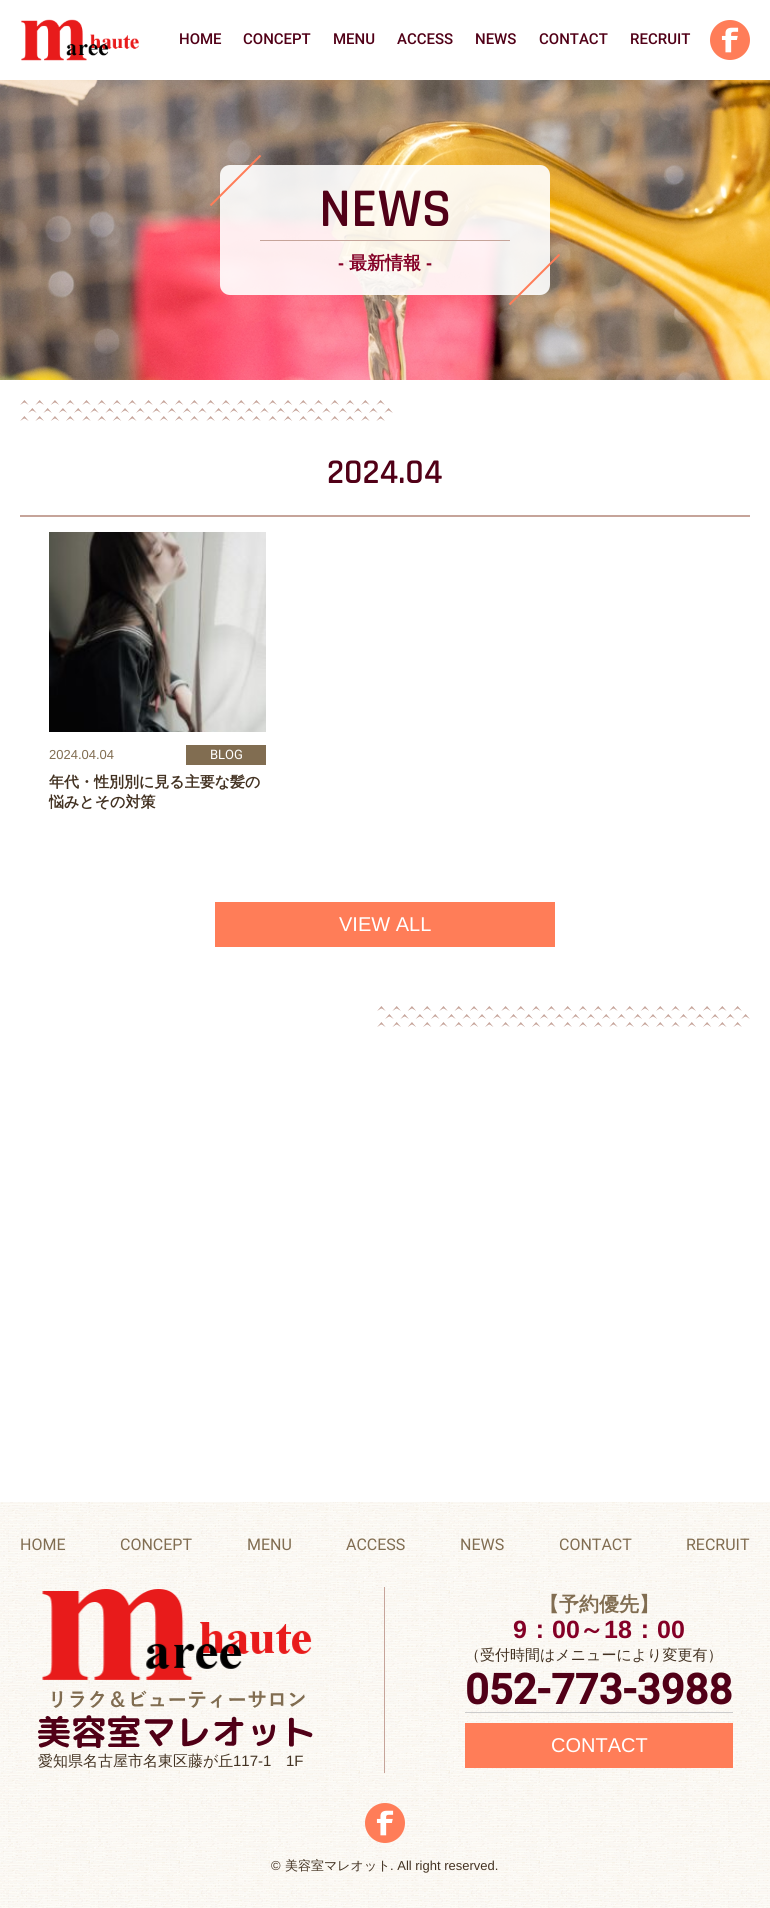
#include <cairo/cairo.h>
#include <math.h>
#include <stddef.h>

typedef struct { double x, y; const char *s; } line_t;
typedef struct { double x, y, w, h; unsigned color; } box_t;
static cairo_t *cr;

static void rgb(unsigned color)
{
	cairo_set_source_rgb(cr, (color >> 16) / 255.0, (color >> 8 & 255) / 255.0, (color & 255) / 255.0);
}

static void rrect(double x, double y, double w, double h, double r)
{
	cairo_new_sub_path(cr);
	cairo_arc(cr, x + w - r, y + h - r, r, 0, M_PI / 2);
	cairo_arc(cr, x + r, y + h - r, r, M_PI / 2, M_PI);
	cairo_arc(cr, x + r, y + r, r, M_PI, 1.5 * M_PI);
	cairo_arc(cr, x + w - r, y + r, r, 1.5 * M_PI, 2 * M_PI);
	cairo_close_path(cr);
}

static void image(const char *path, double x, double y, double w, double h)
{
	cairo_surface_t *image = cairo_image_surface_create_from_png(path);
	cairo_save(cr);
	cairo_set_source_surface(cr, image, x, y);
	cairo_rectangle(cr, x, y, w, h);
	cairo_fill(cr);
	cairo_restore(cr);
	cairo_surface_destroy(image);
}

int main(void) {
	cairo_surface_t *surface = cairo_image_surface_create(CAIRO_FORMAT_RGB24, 770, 1908);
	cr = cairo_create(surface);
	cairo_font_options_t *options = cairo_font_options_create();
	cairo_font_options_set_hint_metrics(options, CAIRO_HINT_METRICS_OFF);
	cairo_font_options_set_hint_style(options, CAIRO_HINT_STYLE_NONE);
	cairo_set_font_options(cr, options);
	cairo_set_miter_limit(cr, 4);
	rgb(0xffffff);
	cairo_paint(cr);
	image("img/1.png", 21, 19, 118, 42);
	image("img/2.png", 710, 20, 40, 40);
	image("img/3.png", 0, 80, 770, 300);
	cairo_set_source_rgba(cr, 1, 1, 1, 0.9);
	rrect(220, 165, 330, 130, 10);
	cairo_fill(cr);
	cairo_new_path(cr);
	cairo_move_to(cr, 260.5, 155.5);
	cairo_line_to(cr, 210.5, 205.5);
	rgb(0xff7d58);
	cairo_stroke(cr);
	rgb(0xc6a49a);
	cairo_rectangle(cr, 260, 240, 250, 1);
	cairo_fill(cr);
	cairo_new_path(cr);
	cairo_move_to(cr, 559.5, 254.5);
	cairo_line_to(cr, 509.5, 304.5);
	rgb(0xff7d58);
	cairo_stroke(cr);
	image("img/4.png", 20, 400, 373, 21);
	rgb(0xc6a49a);
	cairo_rectangle(cr, 20, 515, 730, 2);
	cairo_fill(cr);
	image("img/5.png", 49, 532, 217, 200);
	rgb(0x816d51);
	cairo_rectangle(cr, 186, 745, 80, 20);
	cairo_fill(cr);
	rgb(0xff7d58);
	cairo_rectangle(cr, 215, 902, 340, 45);
	cairo_fill(cr);
	image("img/6.png", 377, 1006, 373, 21);
	image("img/7.png", 0, 1502, 770, 406);
	{
		static const box_t items[] = {
			{465, 1712, 268, 1, 0xcccccc},
			{465, 1723, 268, 45, 0xff7d58},
			{384, 1587, 1, 186, 0xc6a49a},
		};
		for (size_t i = 0; i < sizeof items / sizeof *items; i++) {
			rgb(items[i].color);
			cairo_rectangle(cr, items[i].x, items[i].y, items[i].w, items[i].h);
			cairo_fill(cr);
		}
	}
	image("img/8.png", 38, 1589, 275, 159);
	image("img/9.png", 365, 1803, 40, 40);
	cairo_select_font_face(cr, "Roboto Medium", CAIRO_FONT_SLANT_NORMAL, CAIRO_FONT_WEIGHT_NORMAL);
	cairo_set_font_size(cr, 15);
	rgb(0x510017);
	{
		static const line_t items[] = {
			{179, 44, "HOME"},
			{243, 44, "CONCEPT"},
			{333, 44, "MENU"},
			{397, 44, "ACCESS"},
			{475, 44, "NEWS"},
			{539, 44, "CONTACT"},
			{630, 44, "RECRUIT"},
		};
		for (size_t i = 0; i < sizeof items / sizeof *items; i++) {
			cairo_move_to(cr, items[i].x, items[i].y);
			cairo_show_text(cr, items[i].s);
		}
	}
	cairo_select_font_face(cr, "Rajdhani SemiBold", CAIRO_FONT_SLANT_NORMAL, CAIRO_FONT_WEIGHT_NORMAL);
	cairo_set_font_size(cr, 55);
	cairo_move_to(cr, 319, 226);
	cairo_show_text(cr, "NEWS");
	cairo_select_font_face(cr, "Liberation Sans", CAIRO_FONT_SLANT_NORMAL, CAIRO_FONT_WEIGHT_BOLD);
	cairo_set_font_size(cr, 18);
	rgb(0x840026);
	cairo_move_to(cr, 338, 269);
	cairo_show_text(cr, "-");
	cairo_select_font_face(cr, "WenQuanYi Zen Hei", CAIRO_FONT_SLANT_NORMAL, CAIRO_FONT_WEIGHT_BOLD);
	cairo_move_to(cr, 349, 269);
	cairo_show_text(cr, "最新情報");
	cairo_select_font_face(cr, "Liberation Sans", CAIRO_FONT_SLANT_NORMAL, CAIRO_FONT_WEIGHT_BOLD);
	cairo_move_to(cr, 426, 269);
	cairo_show_text(cr, "-");
	cairo_select_font_face(cr, "Rajdhani SemiBold", CAIRO_FONT_SLANT_NORMAL, CAIRO_FONT_WEIGHT_NORMAL);
	cairo_set_font_size(cr, 35);
	rgb(0x510017);
	cairo_move_to(cr, 327, 483);
	cairo_show_text(cr, "2024.04");
	cairo_select_font_face(cr, "Liberation Sans", CAIRO_FONT_SLANT_NORMAL, CAIRO_FONT_WEIGHT_NORMAL);
	cairo_set_font_size(cr, 13);
	rgb(0x816d51);
	cairo_move_to(cr, 49, 759);
	cairo_show_text(cr, "2024.04.04");
	cairo_select_font_face(cr, "Roboto", CAIRO_FONT_SLANT_NORMAL, CAIRO_FONT_WEIGHT_NORMAL);
	rgb(0xffffff);
	cairo_move_to(cr, 210, 759);
	cairo_show_text(cr, "BLOG");
	cairo_select_font_face(cr, "WenQuanYi Zen Hei", CAIRO_FONT_SLANT_NORMAL, CAIRO_FONT_WEIGHT_BOLD);
	cairo_set_font_size(cr, 15);
	rgb(0x433222);
	cairo_move_to(cr, 49, 787);
	cairo_show_text(cr, "年代・性別別に見る主要な髪の");
	cairo_move_to(cr, 49, 807);
	cairo_show_text(cr, "悩みとその対策");
	cairo_select_font_face(cr, "Liberation Sans", CAIRO_FONT_SLANT_NORMAL, CAIRO_FONT_WEIGHT_NORMAL);
	cairo_set_font_size(cr, 20);
	rgb(0xffffff);
	cairo_move_to(cr, 339, 931);
	cairo_show_text(cr, "VIEW ALL");
	cairo_select_font_face(cr, "Roboto", CAIRO_FONT_SLANT_NORMAL, CAIRO_FONT_WEIGHT_NORMAL);
	cairo_set_font_size(cr, 16);
	rgb(0x816d51);
	{
		static const line_t items[] = {
			{20, 1550, "HOME"},
			{120, 1550, "CONCEPT"},
			{247, 1550, "MENU"},
			{346, 1550, "ACCESS"},
			{460, 1550, "NEWS"},
			{559, 1550, "CONTACT"},
			{686, 1550, "RECRUIT"},
		};
		for (size_t i = 0; i < sizeof items / sizeof *items; i++) {
			cairo_move_to(cr, items[i].x, items[i].y);
			cairo_show_text(cr, items[i].s);
		}
	}
	cairo_select_font_face(cr, "WenQuanYi Zen Hei", CAIRO_FONT_SLANT_NORMAL, CAIRO_FONT_WEIGHT_BOLD);
	cairo_set_font_size(cr, 20);
	cairo_move_to(cr, 539, 1611);
	cairo_show_text(cr, "【予約優先】");
	cairo_select_font_face(cr, "Liberation Sans", CAIRO_FONT_SLANT_NORMAL, CAIRO_FONT_WEIGHT_BOLD);
	cairo_set_font_size(cr, 25);
	rgb(0x840026);
	cairo_move_to(cr, 513, 1638);
	cairo_show_text(cr, "9");
	cairo_select_font_face(cr, "WenQuanYi Zen Hei", CAIRO_FONT_SLANT_NORMAL, CAIRO_FONT_WEIGHT_BOLD);
	cairo_move_to(cr, 527, 1638);
	cairo_show_text(cr, "：");
	cairo_select_font_face(cr, "Liberation Sans", CAIRO_FONT_SLANT_NORMAL, CAIRO_FONT_WEIGHT_BOLD);
	cairo_move_to(cr, 552, 1638);
	cairo_show_text(cr, "00");
	cairo_select_font_face(cr, "WenQuanYi Zen Hei", CAIRO_FONT_SLANT_NORMAL, CAIRO_FONT_WEIGHT_BOLD);
	cairo_move_to(cr, 579, 1638);
	cairo_show_text(cr, "～");
	cairo_select_font_face(cr, "Liberation Sans", CAIRO_FONT_SLANT_NORMAL, CAIRO_FONT_WEIGHT_BOLD);
	cairo_move_to(cr, 604, 1638);
	cairo_show_text(cr, "18");
	cairo_select_font_face(cr, "WenQuanYi Zen Hei", CAIRO_FONT_SLANT_NORMAL, CAIRO_FONT_WEIGHT_BOLD);
	cairo_move_to(cr, 632, 1638);
	cairo_show_text(cr, "：");
	cairo_select_font_face(cr, "Liberation Sans", CAIRO_FONT_SLANT_NORMAL, CAIRO_FONT_WEIGHT_BOLD);
	cairo_move_to(cr, 657, 1638);
	cairo_show_text(cr, "00");
	cairo_select_font_face(cr, "WenQuanYi Zen Hei Medium", CAIRO_FONT_SLANT_NORMAL, CAIRO_FONT_WEIGHT_NORMAL);
	cairo_set_font_size(cr, 15);
	rgb(0x433222);
	cairo_move_to(cr, 465, 1660);
	cairo_show_text(cr, "（受付時間はメニューにより変更有）");
	cairo_select_font_face(cr, "Roboto", CAIRO_FONT_SLANT_NORMAL, CAIRO_FONT_WEIGHT_BOLD);
	cairo_set_font_size(cr, 42);
	rgb(0x510017);
	cairo_move_to(cr, 465, 1704);
	cairo_show_text(cr, "052-773-3988");
	cairo_select_font_face(cr, "Liberation Sans", CAIRO_FONT_SLANT_NORMAL, CAIRO_FONT_WEIGHT_NORMAL);
	cairo_set_font_size(cr, 20);
	rgb(0xffffff);
	cairo_move_to(cr, 551, 1752);
	cairo_show_text(cr, "CONTACT");
	cairo_select_font_face(cr, "WenQuanYi Zen Hei Medium", CAIRO_FONT_SLANT_NORMAL, CAIRO_FONT_WEIGHT_NORMAL);
	cairo_set_font_size(cr, 15);
	rgb(0x433222);
	cairo_move_to(cr, 38, 1766);
	cairo_show_text(cr, "愛知県名古屋市名東区藤が丘");
	cairo_select_font_face(cr, "Liberation Sans", CAIRO_FONT_SLANT_NORMAL, CAIRO_FONT_WEIGHT_NORMAL);
	cairo_move_to(cr, 233, 1766);
	cairo_show_text(cr, "117-1");
	cairo_move_to(cr, 286, 1766);
	cairo_show_text(cr, "1F");
	cairo_set_font_size(cr, 13);
	cairo_move_to(cr, 271, 1870);
	cairo_show_text(cr, "©");
	cairo_select_font_face(cr, "WenQuanYi Zen Hei Medium", CAIRO_FONT_SLANT_NORMAL, CAIRO_FONT_WEIGHT_NORMAL);
	cairo_move_to(cr, 285, 1870);
	cairo_show_text(cr, "美容室マレオット");
	cairo_select_font_face(cr, "Liberation Sans", CAIRO_FONT_SLANT_NORMAL, CAIRO_FONT_WEIGHT_NORMAL);
	cairo_move_to(cr, 390, 1870);
	cairo_show_text(cr, ". All right reserved.");
	cairo_surface_write_to_png(surface, "page.png");
	cairo_font_options_destroy(options);
	cairo_destroy(cr);
	cairo_surface_destroy(surface);
	return 0;
}
